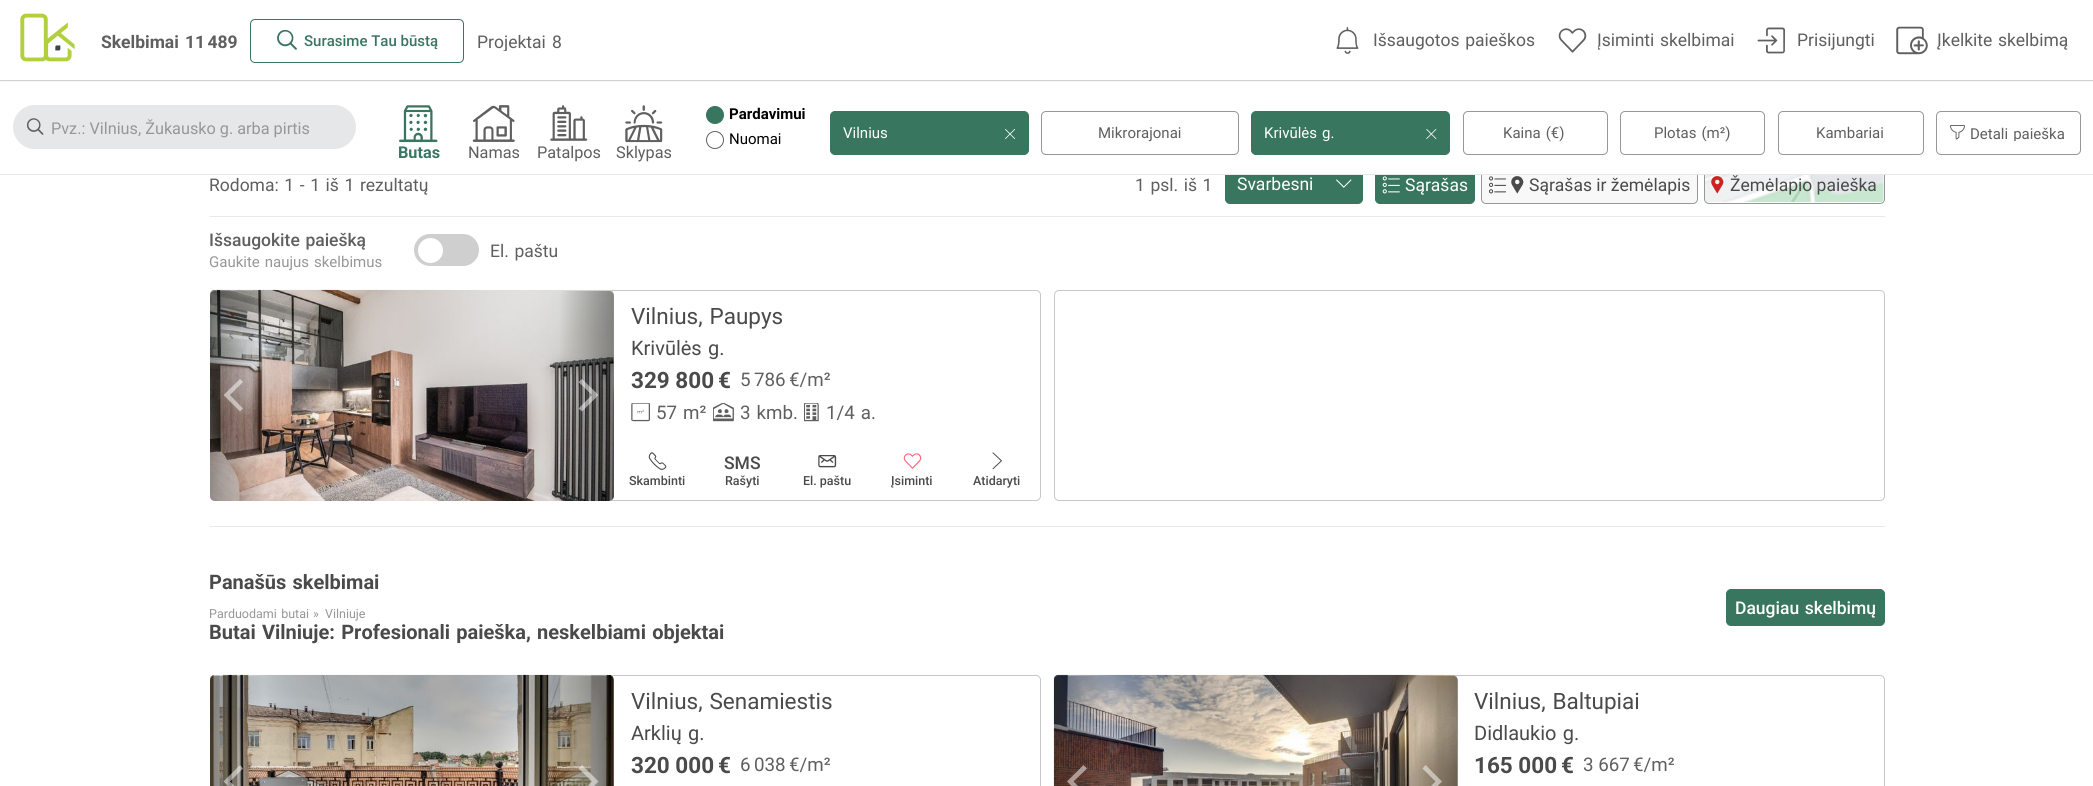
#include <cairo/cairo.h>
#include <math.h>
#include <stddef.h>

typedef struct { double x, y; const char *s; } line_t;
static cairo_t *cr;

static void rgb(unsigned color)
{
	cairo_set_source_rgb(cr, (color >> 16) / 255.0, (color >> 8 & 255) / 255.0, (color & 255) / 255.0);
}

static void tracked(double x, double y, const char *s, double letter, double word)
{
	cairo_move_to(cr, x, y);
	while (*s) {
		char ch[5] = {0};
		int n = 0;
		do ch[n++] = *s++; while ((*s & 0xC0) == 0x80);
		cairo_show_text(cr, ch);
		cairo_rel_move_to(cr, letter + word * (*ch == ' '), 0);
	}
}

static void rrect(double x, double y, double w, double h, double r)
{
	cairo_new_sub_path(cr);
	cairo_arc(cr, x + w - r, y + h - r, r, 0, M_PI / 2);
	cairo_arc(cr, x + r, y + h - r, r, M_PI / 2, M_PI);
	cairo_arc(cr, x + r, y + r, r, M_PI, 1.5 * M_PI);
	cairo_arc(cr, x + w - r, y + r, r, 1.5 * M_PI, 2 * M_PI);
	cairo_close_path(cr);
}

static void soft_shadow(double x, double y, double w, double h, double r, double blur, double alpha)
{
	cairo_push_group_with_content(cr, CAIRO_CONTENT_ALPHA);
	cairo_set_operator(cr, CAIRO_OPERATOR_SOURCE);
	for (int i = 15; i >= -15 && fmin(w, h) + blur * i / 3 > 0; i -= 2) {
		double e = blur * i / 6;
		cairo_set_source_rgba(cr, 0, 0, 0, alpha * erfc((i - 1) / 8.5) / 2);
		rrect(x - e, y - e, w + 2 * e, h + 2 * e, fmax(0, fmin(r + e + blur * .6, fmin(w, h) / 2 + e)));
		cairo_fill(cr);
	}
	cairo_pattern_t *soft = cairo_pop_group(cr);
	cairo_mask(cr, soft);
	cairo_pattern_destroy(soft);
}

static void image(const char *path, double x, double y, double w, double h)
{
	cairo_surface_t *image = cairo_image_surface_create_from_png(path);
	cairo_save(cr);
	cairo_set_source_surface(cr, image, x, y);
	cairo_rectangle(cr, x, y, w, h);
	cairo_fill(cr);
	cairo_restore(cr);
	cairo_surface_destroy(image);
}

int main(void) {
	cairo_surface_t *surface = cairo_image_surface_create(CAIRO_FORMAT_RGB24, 2093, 786);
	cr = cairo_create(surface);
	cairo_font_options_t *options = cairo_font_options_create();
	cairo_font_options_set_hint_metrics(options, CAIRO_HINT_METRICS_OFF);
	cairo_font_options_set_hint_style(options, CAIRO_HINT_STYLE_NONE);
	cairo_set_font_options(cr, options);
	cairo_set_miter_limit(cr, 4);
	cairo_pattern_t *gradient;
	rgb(0xffffff);
	cairo_paint(cr);
	cairo_save(cr);
	cairo_rectangle(cr, 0, 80, 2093, 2);
	cairo_clip(cr);
	rgb(0x000000);
	soft_shadow(0, 0, 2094, 80, 0, 1, 0.5);
	cairo_restore(cr);
	image("img/1.png", 20, 13, 55, 49);
	rrect(250.5, 19.5, 213, 43, 4.5);
	rgb(0x397660);
	cairo_set_line_width(cr, 1);
	cairo_stroke(cr);
	image("img/2.png", 277, 29, 20, 21);
	image("img/3.png", 1336, 27, 23, 27);
	image("img/4.png", 1558, 28, 29, 25);
	image("img/5.png", 1757, 27, 28, 27);
	image("img/6.png", 1896, 26, 32, 29);
	rrect(1225.5, 166.5, 137, 37, 4.5);
	cairo_fill_preserve(cr);
	cairo_stroke(cr);
	rrect(1375.5, 166.5, 99, 37, 4.5);
	cairo_fill_preserve(cr);
	cairo_stroke(cr);
	rgb(0xf8f8f8);
	rrect(1481.5, 166.5, 216, 37, 4.5);
	cairo_fill_preserve(cr);
	rgb(0x979797);
	cairo_stroke(cr);
	rrect(1704.5, 166.5, 180, 37, 4.5);
	cairo_stroke(cr);
	rgb(0xffffff);
	cairo_rectangle(cr, 1225, 166, 660, 8);
	cairo_fill(cr);
	rgb(0xe8e8e8);
	cairo_rectangle(cr, 0, 174, 2093, 1);
	cairo_fill(cr);
	rgb(0xe6e7e8);
	rrect(13, 105, 343, 44, 22);
	cairo_fill(cr);
	image("img/7.png", 26, 118, 18, 17);
	rgb(0x397660);
	cairo_arc(cr, 715, 115, 8.5, 0, 2 * M_PI);
	cairo_fill_preserve(cr);
	cairo_stroke(cr);
	cairo_arc(cr, 715, 140, 8.5, 0, 2 * M_PI);
	rgb(0x5f5f5f);
	cairo_stroke(cr);
	rgb(0x397660);
	rrect(830.5, 111.5, 198, 43, 4.5);
	cairo_fill_preserve(cr);
	cairo_stroke(cr);
	image("img/8.png", 1005, 129, 11, 10);
	rrect(1041.5, 111.5, 197, 43, 4.5);
	rgb(0x979797);
	cairo_stroke(cr);
	rgb(0x397660);
	rrect(1251.5, 111.5, 198, 43, 4.5);
	cairo_fill_preserve(cr);
	cairo_stroke(cr);
	image("img/9.png", 1426, 129, 11, 10);
	rrect(1463.5, 111.5, 144, 43, 4.5);
	rgb(0x979797);
	cairo_stroke(cr);
	rrect(1620.5, 111.5, 144, 43, 4.5);
	cairo_stroke(cr);
	rrect(1778.5, 111.5, 145, 43, 4.5);
	cairo_stroke(cr);
	rrect(1936.5, 111.5, 144, 43, 4.5);
	cairo_stroke(cr);
	image("img/10.png", 1950, 125, 15, 15);
	image("img/11.png", 399, 105, 39, 38);
	image("img/12.png", 472, 105, 43, 37);
	image("img/13.png", 550, 105, 38, 36);
	image("img/14.png", 625, 105, 38, 38);
	image("img/15.png", 1336, 179, 16, 9);
	image("img/16.png", 1382, 176, 18, 18);
	image("img/17.png", 1489, 176, 18, 18);
	image("img/18.png", 1511, 176, 13, 18);
	image("img/19.png", 1705, 175, 179, 28);
	image("img/20.png", 1711, 176, 13, 18);
	rgb(0xe8e8e8);
	cairo_rectangle(cr, 210, 216, 1675, 1);
	cairo_fill(cr);
	rgb(0xcfcfcf);
	rrect(414, 234, 65, 32, 16);
	cairo_fill(cr);
	rgb(0xffffff);
	cairo_arc(cr, 430.5, 250.5, 12.5, 0, 2 * M_PI);
	cairo_fill(cr);
	rrect(210.5, 290.5, 830, 210, 4.5);
	rgb(0xc7c7c7);
	cairo_stroke(cr);
	rgb(0xe5e5e5);
	rrect(210, 290, 404, 211, 5);
	cairo_fill(cr);
	image("img/21.png", 210, 289, 404, 212);
	cairo_save(cr);
	rrect(210, 290, 404, 211, 5);
	cairo_clip(cr);
	gradient = cairo_pattern_create_linear(265, 396, 210, 396);
	cairo_pattern_add_color_stop_rgba(gradient, 0, 0, 0, 0, 0);
	cairo_pattern_add_color_stop_rgba(gradient, 1, 0, 0, 0, 0.35);
	cairo_set_source(cr, gradient);
	cairo_pattern_destroy(gradient);
	rrect(210, 291, 55, 212, 5);
	cairo_fill(cr);
	cairo_restore(cr);
	cairo_set_source_rgba(cr, 1, 1, 1, 0.5);
	cairo_new_path(cr);
	cairo_move_to(cr, 223.5, 395);
	cairo_line_to(cr, 240, 411.5);
	cairo_line_to(cr, 243, 408.5);
	cairo_line_to(cr, 230, 395);
	cairo_line_to(cr, 243, 382);
	cairo_line_to(cr, 240, 379);
	cairo_close_path(cr);
	cairo_fill(cr);
	cairo_save(cr);
	rrect(210, 290, 404, 211, 5);
	cairo_clip(cr);
	gradient = cairo_pattern_create_linear(559, 396, 614, 396);
	cairo_pattern_add_color_stop_rgba(gradient, 0, 0, 0, 0, 0);
	cairo_pattern_add_color_stop_rgba(gradient, 1, 0, 0, 0, 0.35);
	cairo_set_source(cr, gradient);
	cairo_pattern_destroy(gradient);
	rrect(559, 291, 55, 212, 5);
	cairo_fill(cr);
	cairo_restore(cr);
	cairo_new_path(cr);
	cairo_move_to(cr, 598.5, 395);
	cairo_line_to(cr, 582, 379);
	cairo_line_to(cr, 578.5, 382);
	cairo_line_to(cr, 592, 395);
	cairo_line_to(cr, 578.5, 408.5);
	cairo_line_to(cr, 582, 411.5);
	cairo_close_path(cr);
	cairo_fill(cr);
	image("img/22.png", 631, 403, 19, 19);
	image("img/23.png", 713, 403, 21, 19);
	image("img/24.png", 804, 403, 15, 19);
	image("img/25.png", 648, 452, 19, 18);
	image("img/26.png", 818, 455, 19, 13);
	image("img/27.png", 903, 453, 19, 16);
	image("img/28.png", 992, 452, 10, 18);
	rrect(1054.5, 290.5, 830, 210, 4.5);
	rgb(0xc7c7c7);
	cairo_stroke(cr);
	rgb(0xe8e8e8);
	cairo_rectangle(cr, 210, 526, 1675, 1);
	cairo_fill(cr);
	rgb(0x397660);
	rrect(1726.5, 589.5, 158, 36, 4.5);
	cairo_fill_preserve(cr);
	cairo_stroke(cr);
	rrect(210.5, 675.5, 830, 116, 4.5);
	rgb(0xc7c7c7);
	cairo_stroke(cr);
	rgb(0xe5e5e5);
	rrect(210, 675, 404, 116, 5);
	cairo_fill(cr);
	image("img/29.png", 210, 674, 404, 112);
	gradient = cairo_pattern_create_linear(265, 781, 210, 781);
	cairo_pattern_add_color_stop_rgba(gradient, 0, 0, 0, 0, 0);
	cairo_pattern_add_color_stop_rgba(gradient, 1, 0, 0, 0, 0.35);
	cairo_set_source(cr, gradient);
	cairo_pattern_destroy(gradient);
	rrect(210, 676, 55, 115, 5);
	cairo_fill(cr);
	cairo_set_source_rgba(cr, 1, 1, 1, 0.5);
	cairo_new_path(cr);
	cairo_move_to(cr, 223.5, 781.5);
	cairo_line_to(cr, 240, 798);
	cairo_line_to(cr, 243, 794.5);
	cairo_line_to(cr, 230, 781.5);
	cairo_line_to(cr, 243, 768.5);
	cairo_line_to(cr, 240, 765);
	cairo_close_path(cr);
	cairo_fill(cr);
	gradient = cairo_pattern_create_linear(559, 781, 614, 781);
	cairo_pattern_add_color_stop_rgba(gradient, 0, 0, 0, 0, 0);
	cairo_pattern_add_color_stop_rgba(gradient, 1, 0, 0, 0, 0.35);
	cairo_set_source(cr, gradient);
	cairo_pattern_destroy(gradient);
	rrect(559, 676, 55, 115, 5);
	cairo_fill(cr);
	cairo_set_source_rgba(cr, 1, 1, 1, 0.5);
	cairo_new_path(cr);
	cairo_move_to(cr, 598.5, 781.5);
	cairo_line_to(cr, 582, 765);
	cairo_line_to(cr, 578.5, 768.5);
	cairo_line_to(cr, 592, 781.5);
	cairo_line_to(cr, 578.5, 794.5);
	cairo_line_to(cr, 582, 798);
	cairo_close_path(cr);
	cairo_fill(cr);
	rrect(1054.5, 675.5, 830, 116, 4.5);
	rgb(0xc7c7c7);
	cairo_stroke(cr);
	rgb(0xe5e5e5);
	rrect(1054, 675, 404, 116, 5);
	cairo_fill(cr);
	image("img/30.png", 1053, 674, 405, 112);
	gradient = cairo_pattern_create_linear(1109, 781, 1054, 781);
	cairo_pattern_add_color_stop_rgba(gradient, 0, 0, 0, 0, 0);
	cairo_pattern_add_color_stop_rgba(gradient, 1, 0, 0, 0, 0.35);
	cairo_set_source(cr, gradient);
	cairo_pattern_destroy(gradient);
	rrect(1054, 676, 55, 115, 5);
	cairo_fill(cr);
	cairo_set_source_rgba(cr, 1, 1, 1, 0.5);
	cairo_new_path(cr);
	cairo_move_to(cr, 1067, 781.5);
	cairo_line_to(cr, 1083.5, 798);
	cairo_line_to(cr, 1087, 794.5);
	cairo_line_to(cr, 1073.5, 781.5);
	cairo_line_to(cr, 1087, 768.5);
	cairo_line_to(cr, 1083.5, 765);
	cairo_close_path(cr);
	cairo_fill(cr);
	gradient = cairo_pattern_create_linear(1403, 781, 1458, 781);
	cairo_pattern_add_color_stop_rgba(gradient, 0, 0, 0, 0, 0);
	cairo_pattern_add_color_stop_rgba(gradient, 1, 0, 0, 0, 0.35);
	cairo_set_source(cr, gradient);
	cairo_pattern_destroy(gradient);
	rrect(1403, 676, 55, 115, 5);
	cairo_fill(cr);
	cairo_set_source_rgba(cr, 1, 1, 1, 0.5);
	cairo_new_path(cr);
	cairo_move_to(cr, 1442, 781.5);
	cairo_line_to(cr, 1425.5, 765);
	cairo_line_to(cr, 1422.5, 768.5);
	cairo_line_to(cr, 1435.5, 781.5);
	cairo_line_to(cr, 1422.5, 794.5);
	cairo_line_to(cr, 1425.5, 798);
	cairo_close_path(cr);
	cairo_fill(cr);
	cairo_select_font_face(cr, "Roboto", CAIRO_FONT_SLANT_NORMAL, CAIRO_FONT_WEIGHT_BOLD);
	cairo_set_font_size(cr, 17.5);
	rgb(0x5f5f5f);
	cairo_move_to(cr, 101, 48);
	cairo_show_text(cr, "Skelbimai");
	tracked(185, 48, "11 489", 0, -2);
	cairo_select_font_face(cr, "Roboto Medium", CAIRO_FONT_SLANT_NORMAL, CAIRO_FONT_WEIGHT_NORMAL);
	cairo_set_font_size(cr, 15);
	rgb(0x397660);
	cairo_move_to(cr, 304, 46);
	cairo_show_text(cr, "Surasime Tau būstą");
	cairo_save(cr);
	cairo_rectangle(cr, 476, 31, 69, 20);
	cairo_clip(cr);
	cairo_select_font_face(cr, "Roboto", CAIRO_FONT_SLANT_NORMAL, CAIRO_FONT_WEIGHT_NORMAL);
	cairo_set_font_size(cr, 17.5);
	rgb(0x5f5f5f);
	cairo_move_to(cr, 477, 48);
	cairo_show_text(cr, "Projektai");
	cairo_restore(cr);
	cairo_select_font_face(cr, "Roboto", CAIRO_FONT_SLANT_NORMAL, CAIRO_FONT_WEIGHT_NORMAL);
	cairo_set_font_size(cr, 17.5);
	rgb(0x5f5f5f);
	cairo_move_to(cr, 552, 48);
	cairo_show_text(cr, "8");
	tracked(1373, 46, "Išsaugotos paieškos", 0, 1.25);
	cairo_save(cr);
	cairo_rectangle(cr, 1598, 30, 137, 20);
	cairo_clip(cr);
	tracked(1597, 46, "Įsiminti skelbimai", 0, 1.25);
	cairo_restore(cr);
	cairo_move_to(cr, 1797, 46);
	cairo_show_text(cr, "Prisijungti");
	tracked(1937, 46, "Įkelkite skelbimą", 0, 1.25);
	cairo_set_font_size(cr, 16.25);
	rgb(0x979797);
	cairo_move_to(cr, 51, 134);
	cairo_show_text(cr, "Pvz.: Vilnius, Žukausko g. arba pirtis");
	cairo_select_font_face(cr, "Roboto", CAIRO_FONT_SLANT_NORMAL, CAIRO_FONT_WEIGHT_BOLD);
	cairo_set_font_size(cr, 15);
	rgb(0x000000);
	cairo_move_to(cr, 729, 119);
	cairo_show_text(cr, "Pardavimui");
	cairo_select_font_face(cr, "Roboto", CAIRO_FONT_SLANT_NORMAL, CAIRO_FONT_WEIGHT_NORMAL);
	cairo_move_to(cr, 729, 144);
	cairo_show_text(cr, "Nuomai");
	rgb(0xffffff);
	cairo_move_to(cr, 843, 138);
	cairo_show_text(cr, "Vilnius");
	rgb(0x5f5f5f);
	cairo_move_to(cr, 1098, 138);
	cairo_show_text(cr, "Mikrorajonai");
	rgb(0xffffff);
	tracked(1264, 138, "Krivūlės g.", 0, 1.25);
	rgb(0x5f5f5f);
	tracked(1503, 138, "Kaina (€)", 0, 1.25);
	tracked(1654, 138, "Plotas (m²)", 0, 1.25);
	cairo_move_to(cr, 1816, 138);
	cairo_show_text(cr, "Kambariai");
	cairo_save(cr);
	cairo_rectangle(cr, 1949, 125, 119, 16);
	cairo_clip(cr);
	tracked(1970, 139, "Detali paieška", 0, 1.25);
	cairo_restore(cr);
	cairo_select_font_face(cr, "Roboto", CAIRO_FONT_SLANT_NORMAL, CAIRO_FONT_WEIGHT_BOLD);
	cairo_set_font_size(cr, 16.25);
	rgb(0x397660);
	cairo_move_to(cr, 398, 158);
	cairo_show_text(cr, "Butas");
	cairo_select_font_face(cr, "Roboto", CAIRO_FONT_SLANT_NORMAL, CAIRO_FONT_WEIGHT_NORMAL);
	rgb(0x5f5f5f);
	{
		static const line_t items[] = {
			{468, 158, "Namas"},
			{537, 158, "Patalpos"},
			{616, 158, "Sklypas"},
		};
		for (size_t i = 0; i < sizeof items / sizeof *items; i++) {
			cairo_move_to(cr, items[i].x, items[i].y);
			cairo_show_text(cr, items[i].s);
		}
	}
	cairo_set_font_size(cr, 17.5);
	tracked(209, 191, "Rodoma: 1 - 1 iš 1 rezultatų", 0, 1.25);
	tracked(1135, 191, "1 psl. iš 1", 0, 1.25);
	rgb(0xffffff);
	cairo_move_to(cr, 1237, 190);
	cairo_show_text(cr, "Svarbesni");
	cairo_move_to(cr, 1405, 191);
	cairo_show_text(cr, "Sąrašas");
	rgb(0x4a4a4a);
	cairo_move_to(cr, 1529, 191);
	cairo_show_text(cr, "Sąrašas ir žemėlapis");
	cairo_move_to(cr, 1730, 191);
	cairo_show_text(cr, "Žemėlapio paieška");
	cairo_select_font_face(cr, "Roboto Medium", CAIRO_FONT_SLANT_NORMAL, CAIRO_FONT_WEIGHT_NORMAL);
	rgb(0x5f5f5f);
	tracked(209, 246, "Išsaugokite paiešką", 0, 1.25);
	cairo_select_font_face(cr, "Roboto", CAIRO_FONT_SLANT_NORMAL, CAIRO_FONT_WEIGHT_NORMAL);
	cairo_set_font_size(cr, 15);
	rgb(0x979797);
	tracked(209, 267, "Gaukite naujus skelbimus", 0, 1.25);
	cairo_set_font_size(cr, 17.5);
	rgb(0x5f5f5f);
	tracked(490, 257, "El. paštu", 0, 1.25);
	cairo_set_font_size(cr, 22.5);
	rgb(0x4a4a4a);
	tracked(631, 324, "Vilnius, Paupys", 0, 1.25);
	cairo_set_font_size(cr, 20);
	tracked(631, 355, "Krivūlės g.", 0, 1.25);
	cairo_select_font_face(cr, "Roboto", CAIRO_FONT_SLANT_NORMAL, CAIRO_FONT_WEIGHT_BOLD);
	cairo_set_font_size(cr, 22.5);
	cairo_move_to(cr, 631, 388);
	cairo_show_text(cr, "329 800");
	cairo_move_to(cr, 718, 388);
	cairo_show_text(cr, "€");
	cairo_select_font_face(cr, "Roboto", CAIRO_FONT_SLANT_NORMAL, CAIRO_FONT_WEIGHT_NORMAL);
	cairo_set_font_size(cr, 18.75);
	rgb(0x5f5f5f);
	cairo_move_to(cr, 740, 386);
	cairo_show_text(cr, "5");
	cairo_move_to(cr, 754, 386);
	cairo_show_text(cr, "786");
	cairo_move_to(cr, 789, 386);
	cairo_show_text(cr, "€/m²");
	{
		static const line_t items[] = {
			{656, 419, "57 m²"},
			{740, 419, "3 kmb."},
			{826, 419, "1/4 a."},
		};
		for (size_t i = 0; i < sizeof items / sizeof *items; i++) {
			tracked(items[i].x, items[i].y, items[i].s, 0, 1.25);
		}
	}
	cairo_select_font_face(cr, "Roboto Medium", CAIRO_FONT_SLANT_NORMAL, CAIRO_FONT_WEIGHT_NORMAL);
	cairo_set_font_size(cr, 12.5);
	rgb(0x4a4a4a);
	cairo_move_to(cr, 629, 485);
	cairo_show_text(cr, "Skambinti");
	cairo_set_font_size(cr, 17.5);
	cairo_move_to(cr, 724, 469);
	cairo_show_text(cr, "SMS");
	cairo_set_font_size(cr, 12.5);
	{
		static const line_t items[] = {
			{725, 485, "Rašyti"},
			{803, 485, "El. paštu"},
			{891, 485, "Įsiminti"},
			{973, 485, "Atidaryti"},
		};
		for (size_t i = 0; i < sizeof items / sizeof *items; i++) {
			cairo_move_to(cr, items[i].x, items[i].y);
			cairo_show_text(cr, items[i].s);
		}
	}
	cairo_select_font_face(cr, "Roboto", CAIRO_FONT_SLANT_NORMAL, CAIRO_FONT_WEIGHT_BOLD);
	cairo_set_font_size(cr, 20);
	tracked(209, 589, "Panašūs skelbimai", 0, 1.25);
	cairo_select_font_face(cr, "Roboto", CAIRO_FONT_SLANT_NORMAL, CAIRO_FONT_WEIGHT_NORMAL);
	cairo_set_font_size(cr, 12.5);
	rgb(0x979797);
	tracked(209, 618, "Parduodami butai", 0, 1.25);
	cairo_move_to(cr, 313, 618);
	cairo_show_text(cr, "»");
	cairo_move_to(cr, 325, 618);
	cairo_show_text(cr, "Vilniuje");
	cairo_select_font_face(cr, "Roboto", CAIRO_FONT_SLANT_NORMAL, CAIRO_FONT_WEIGHT_BOLD);
	cairo_set_font_size(cr, 20);
	rgb(0x4a4a4a);
	tracked(209, 639, "Butai Vilniuje: Profesionali paieška, neskelbiami objektai", 0, 1.25);
	cairo_select_font_face(cr, "Roboto Medium", CAIRO_FONT_SLANT_NORMAL, CAIRO_FONT_WEIGHT_NORMAL);
	cairo_set_font_size(cr, 17.5);
	rgb(0xffffff);
	tracked(1735, 614, "Daugiau skelbimų", 0, 1.25);
	cairo_select_font_face(cr, "Roboto", CAIRO_FONT_SLANT_NORMAL, CAIRO_FONT_WEIGHT_NORMAL);
	cairo_set_font_size(cr, 22.5);
	rgb(0x4a4a4a);
	tracked(631, 709, "Vilnius, Senamiestis", 0, 1.25);
	cairo_set_font_size(cr, 20);
	tracked(631, 740, "Arklių g.", 0, 1.25);
	cairo_select_font_face(cr, "Roboto", CAIRO_FONT_SLANT_NORMAL, CAIRO_FONT_WEIGHT_BOLD);
	cairo_set_font_size(cr, 22.5);
	cairo_move_to(cr, 631, 773);
	cairo_show_text(cr, "320 000");
	cairo_move_to(cr, 718, 773);
	cairo_show_text(cr, "€");
	cairo_select_font_face(cr, "Roboto", CAIRO_FONT_SLANT_NORMAL, CAIRO_FONT_WEIGHT_NORMAL);
	cairo_set_font_size(cr, 18.75);
	rgb(0x5f5f5f);
	cairo_move_to(cr, 740, 771);
	cairo_show_text(cr, "6");
	cairo_move_to(cr, 754, 771);
	cairo_show_text(cr, "038");
	cairo_move_to(cr, 789, 771);
	cairo_show_text(cr, "€/m²");
	cairo_set_font_size(cr, 22.5);
	rgb(0x4a4a4a);
	tracked(1474, 709, "Vilnius, Baltupiai", 0, 1.25);
	cairo_set_font_size(cr, 20);
	tracked(1474, 740, "Didlaukio g.", 0, 1.25);
	cairo_select_font_face(cr, "Roboto", CAIRO_FONT_SLANT_NORMAL, CAIRO_FONT_WEIGHT_BOLD);
	cairo_set_font_size(cr, 22.5);
	cairo_move_to(cr, 1474, 773);
	cairo_show_text(cr, "165 000");
	cairo_move_to(cr, 1561, 773);
	cairo_show_text(cr, "€");
	cairo_select_font_face(cr, "Roboto", CAIRO_FONT_SLANT_NORMAL, CAIRO_FONT_WEIGHT_NORMAL);
	cairo_set_font_size(cr, 18.75);
	rgb(0x5f5f5f);
	cairo_move_to(cr, 1583, 771);
	cairo_show_text(cr, "3 667");
	cairo_move_to(cr, 1633, 771);
	cairo_show_text(cr, "€/m²");
	cairo_surface_write_to_png(surface, "page.png");
	cairo_font_options_destroy(options);
	cairo_destroy(cr);
	cairo_surface_destroy(surface);
	return 0;
}
